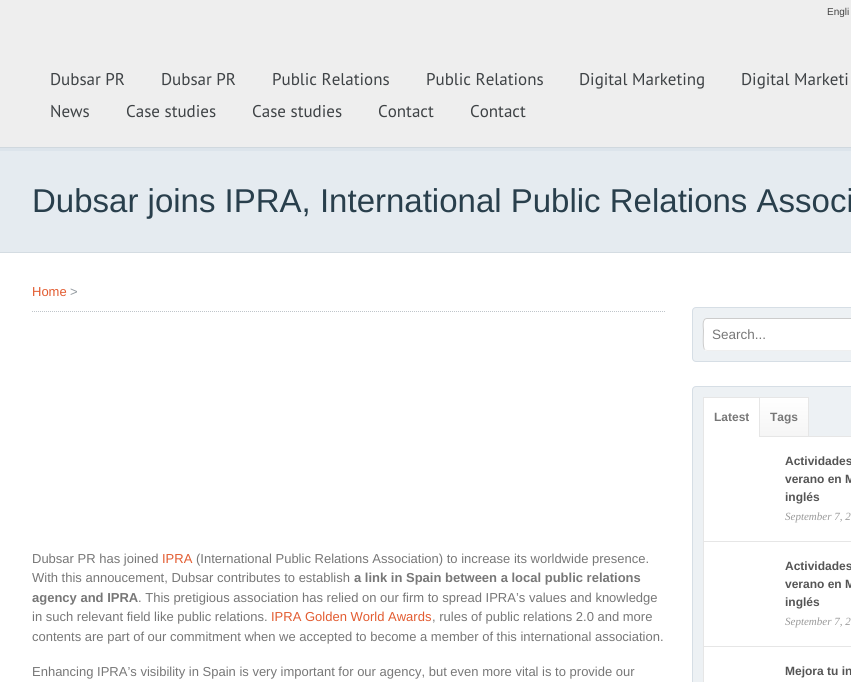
#include <cairo/cairo.h>
#include <math.h>
#include <stddef.h>

typedef struct { double x, y; const char *s; } line_t;
typedef struct { double x, y, w, h; unsigned color; } box_t;
static cairo_t *cr;

static void rgb(unsigned color)
{
	cairo_set_source_rgb(cr, (color >> 16) / 255.0, (color >> 8 & 255) / 255.0, (color & 255) / 255.0);
}

static void rrect(double x, double y, double w, double h, double r)
{
	cairo_new_sub_path(cr);
	cairo_arc(cr, x + w - r, y + h - r, r, 0, M_PI / 2);
	cairo_arc(cr, x + r, y + h - r, r, M_PI / 2, M_PI);
	cairo_arc(cr, x + r, y + r, r, M_PI, 1.5 * M_PI);
	cairo_arc(cr, x + w - r, y + r, r, 1.5 * M_PI, 2 * M_PI);
	cairo_close_path(cr);
}

int main(void) {
	cairo_surface_t *surface = cairo_image_surface_create(CAIRO_FORMAT_RGB24, 851, 682);
	cr = cairo_create(surface);
	cairo_font_options_t *options = cairo_font_options_create();
	cairo_font_options_set_hint_metrics(options, CAIRO_HINT_METRICS_OFF);
	cairo_font_options_set_hint_style(options, CAIRO_HINT_STYLE_NONE);
	cairo_set_font_options(cr, options);
	cairo_set_miter_limit(cr, 4);
	cairo_pattern_t *gradient;
	rgb(0xffffff);
	cairo_paint(cr);
	{
		static const box_t items[] = {
			{0, 0, 851, 147, 0xeeeeee},
			{0, 147, 851, 1, 0xd0d8de},
			{0, 151, 851, 101, 0xe5ebf0},
			{0, 148, 851, 3, 0xdce4eb},
			{0, 252, 851, 1, 0xd4dce2},
		};
		for (size_t i = 0; i < sizeof items / sizeof *items; i++) {
			rgb(items[i].color);
			cairo_rectangle(cr, items[i].x, items[i].y, items[i].w, items[i].h);
			cairo_fill(cr);
		}
	}
	cairo_new_path(cr);
	cairo_move_to(cr, 32, 311.5);
	cairo_line_to(cr, 665, 311.5);
	rgb(0xbfc5ca);
	cairo_set_line_width(cr, 1);
	cairo_set_dash(cr, (double[]){1, 1}, 2, 0);
	cairo_stroke(cr);
	rgb(0xedf1f4);
	rrect(692.5, 307.5, 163, 54, 3.5);
	cairo_fill_preserve(cr);
	rgb(0xd6dee5);
	cairo_set_dash(cr, NULL, 0, 0);
	cairo_stroke(cr);
	rgb(0xffffff);
	rrect(703, 318, 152, 33, 4);
	cairo_fill(cr);
	cairo_new_path(cr);
	cairo_move_to(cr, 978.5, 319.5);
	cairo_curve_to(cr, 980.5, 322, 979.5, 335.5, 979.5, 338.5);
	cairo_curve_to(cr, 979.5, 341, 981.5, 350.5, 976, 350.5);
	cairo_line_to(cr, 707, 350.5);
	cairo_line_to(cr, 704.5, 349.5);
	rgb(0xefefef);
	cairo_stroke(cr);
	cairo_new_path(cr);
	cairo_move_to(cr, 704.5, 349.5);
	cairo_curve_to(cr, 702.5, 347, 703.5, 333.5, 703.5, 330.5);
	cairo_curve_to(cr, 703.5, 328, 701.5, 318.5, 707, 318.5);
	cairo_line_to(cr, 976, 318.5);
	cairo_line_to(cr, 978.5, 319.5);
	rgb(0xcccccc);
	cairo_stroke(cr);
	rgb(0xedf1f4);
	rrect(692.5, 386.5, 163, 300, 3.5);
	cairo_fill_preserve(cr);
	rgb(0xd6dee5);
	cairo_stroke(cr);
	rgb(0xffffff);
	cairo_rectangle(cr, 703.5, 436.5, 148, 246);
	cairo_fill_preserve(cr);
	rgb(0xe6e6e6);
	cairo_stroke(cr);
	{
		static const box_t items[] = {
			{704, 398, 55, 39, 0xffffff},
			{703, 397, 106, 1, 0xe6e6e6},
			{759, 397, 1, 40, 0xe6e6e6},
			{703, 397, 1, 40, 0xe6e6e6},
		};
		for (size_t i = 0; i < sizeof items / sizeof *items; i++) {
			rgb(items[i].color);
			cairo_rectangle(cr, items[i].x, items[i].y, items[i].w, items[i].h);
			cairo_fill(cr);
		}
	}
	gradient = cairo_pattern_create_linear(760, 397, 760, 437);
	cairo_pattern_add_color_stop_rgba(gradient, 0, 1, 1, 1, 1);
	cairo_pattern_add_color_stop_rgba(gradient, 1, 0.961, 0.961, 0.961, 1);
	cairo_set_source(cr, gradient);
	cairo_pattern_destroy(gradient);
	cairo_rectangle(cr, 760, 398, 48, 38);
	cairo_fill(cr);
	{
		static const box_t items[] = {
			{808, 397, 1, 40, 0xe6e6e6},
			{704, 541, 147, 1, 0xe6e6e6},
			{704, 646, 147, 1, 0xe6e6e6},
		};
		for (size_t i = 0; i < sizeof items / sizeof *items; i++) {
			rgb(items[i].color);
			cairo_rectangle(cr, items[i].x, items[i].y, items[i].w, items[i].h);
			cairo_fill(cr);
		}
	}
	cairo_select_font_face(cr, "Liberation Sans", CAIRO_FONT_SLANT_NORMAL, CAIRO_FONT_WEIGHT_NORMAL);
	cairo_set_font_size(cr, 10);
	rgb(0x444444);
	cairo_move_to(cr, 827, 15);
	cairo_show_text(cr, "Engli");
	cairo_select_font_face(cr, "PT Sans", CAIRO_FONT_SLANT_NORMAL, CAIRO_FONT_WEIGHT_NORMAL);
	cairo_set_font_size(cr, 17);
	rgb(0x3e4245);
	{
		static const line_t items[] = {
			{50, 85, "Dubsar PR"},
			{161, 85, "Dubsar PR"},
			{272, 85, "Public Relations"},
			{426, 85, "Public Relations"},
			{579, 85, "Digital Marketing"},
			{741, 85, "Digital Marketi"},
			{50, 117, "News"},
			{126, 117, "Case studies"},
			{252, 117, "Case studies"},
			{378, 117, "Contact"},
			{470, 117, "Contact"},
		};
		for (size_t i = 0; i < sizeof items / sizeof *items; i++) {
			cairo_move_to(cr, items[i].x, items[i].y);
			cairo_show_text(cr, items[i].s);
		}
	}
	cairo_select_font_face(cr, "Liberation Sans", CAIRO_FONT_SLANT_NORMAL, CAIRO_FONT_WEIGHT_NORMAL);
	cairo_set_font_size(cr, 33);
	rgb(0x293f4c);
	cairo_move_to(cr, 32, 212);
	cairo_show_text(cr, "Dubsar joins IPRA, International Public Relations Associ");
	cairo_set_font_size(cr, 13);
	rgb(0xe25b30);
	cairo_move_to(cr, 32, 296);
	cairo_show_text(cr, "Home");
	rgb(0x92999f);
	cairo_move_to(cr, 70, 296);
	cairo_show_text(cr, ">");
	rgb(0x777777);
	cairo_move_to(cr, 32, 563);
	cairo_show_text(cr, "Dubsar PR has joined");
	rgb(0xe25b30);
	cairo_move_to(cr, 162, 563);
	cairo_show_text(cr, "IPRA");
	rgb(0x777777);
	cairo_move_to(cr, 196, 563);
	cairo_show_text(cr, "(International Public Relations Association) to increase its worldwide presence.");
	cairo_move_to(cr, 32, 582);
	cairo_show_text(cr, "With this annoucement, Dubsar contributes to establish");
	cairo_select_font_face(cr, "Liberation Sans", CAIRO_FONT_SLANT_NORMAL, CAIRO_FONT_WEIGHT_BOLD);
	cairo_move_to(cr, 354, 582);
	cairo_show_text(cr, "a link in Spain between a local public relations");
	cairo_move_to(cr, 32, 602);
	cairo_show_text(cr, "agency and IPRA");
	cairo_select_font_face(cr, "Liberation Sans", CAIRO_FONT_SLANT_NORMAL, CAIRO_FONT_WEIGHT_NORMAL);
	cairo_move_to(cr, 138, 602);
	cairo_show_text(cr, ". This pretigious association has relied on our firm to spread IPRA’s values and knowledge");
	cairo_move_to(cr, 32, 621);
	cairo_show_text(cr, "in such relevant field like public relations.");
	rgb(0xe25b30);
	cairo_move_to(cr, 271, 621);
	cairo_show_text(cr, "IPRA Golden World Awards");
	rgb(0x777777);
	{
		static const line_t items[] = {
			{432, 621, ", rules of public relations 2.0 and more"},
			{32, 641, "contents are part of our commitment when we accepted to become a member of this international association."},
			{32, 676, "Enhancing IPRA’s visibility in Spain is very important for our agency, but even more vital is to provide our"},
		};
		for (size_t i = 0; i < sizeof items / sizeof *items; i++) {
			cairo_move_to(cr, items[i].x, items[i].y);
			cairo_show_text(cr, items[i].s);
		}
	}
	cairo_set_font_size(cr, 13.5);
	cairo_move_to(cr, 712, 339);
	cairo_show_text(cr, "Search...");
	cairo_select_font_face(cr, "Liberation Sans", CAIRO_FONT_SLANT_NORMAL, CAIRO_FONT_WEIGHT_BOLD);
	cairo_set_font_size(cr, 12);
	cairo_move_to(cr, 714, 421);
	cairo_show_text(cr, "Latest");
	cairo_move_to(cr, 770, 421);
	cairo_show_text(cr, "Tags");
	rgb(0x555555);
	{
		static const line_t items[] = {
			{785, 465, "Actividades"},
			{785, 483, "verano en M"},
			{785, 501, "inglés"},
		};
		for (size_t i = 0; i < sizeof items / sizeof *items; i++) {
			cairo_move_to(cr, items[i].x, items[i].y);
			cairo_show_text(cr, items[i].s);
		}
	}
	cairo_select_font_face(cr, "Liberation Serif", CAIRO_FONT_SLANT_ITALIC, CAIRO_FONT_WEIGHT_NORMAL);
	cairo_set_font_size(cr, 11);
	rgb(0x999999);
	cairo_move_to(cr, 785, 520);
	cairo_show_text(cr, "September 7, 2");
	cairo_select_font_face(cr, "Liberation Sans", CAIRO_FONT_SLANT_NORMAL, CAIRO_FONT_WEIGHT_BOLD);
	cairo_set_font_size(cr, 12);
	rgb(0x555555);
	{
		static const line_t items[] = {
			{785, 570, "Actividades"},
			{785, 588, "verano en M"},
			{785, 606, "inglés"},
		};
		for (size_t i = 0; i < sizeof items / sizeof *items; i++) {
			cairo_move_to(cr, items[i].x, items[i].y);
			cairo_show_text(cr, items[i].s);
		}
	}
	cairo_select_font_face(cr, "Liberation Serif", CAIRO_FONT_SLANT_ITALIC, CAIRO_FONT_WEIGHT_NORMAL);
	cairo_set_font_size(cr, 11);
	rgb(0x999999);
	cairo_move_to(cr, 785, 625);
	cairo_show_text(cr, "September 7, 2");
	cairo_select_font_face(cr, "Liberation Sans", CAIRO_FONT_SLANT_NORMAL, CAIRO_FONT_WEIGHT_BOLD);
	cairo_set_font_size(cr, 12);
	rgb(0x555555);
	cairo_move_to(cr, 785, 675);
	cairo_show_text(cr, "Mejora tu in");
	cairo_surface_write_to_png(surface, "page.png");
	cairo_font_options_destroy(options);
	cairo_destroy(cr);
	cairo_surface_destroy(surface);
	return 0;
}
